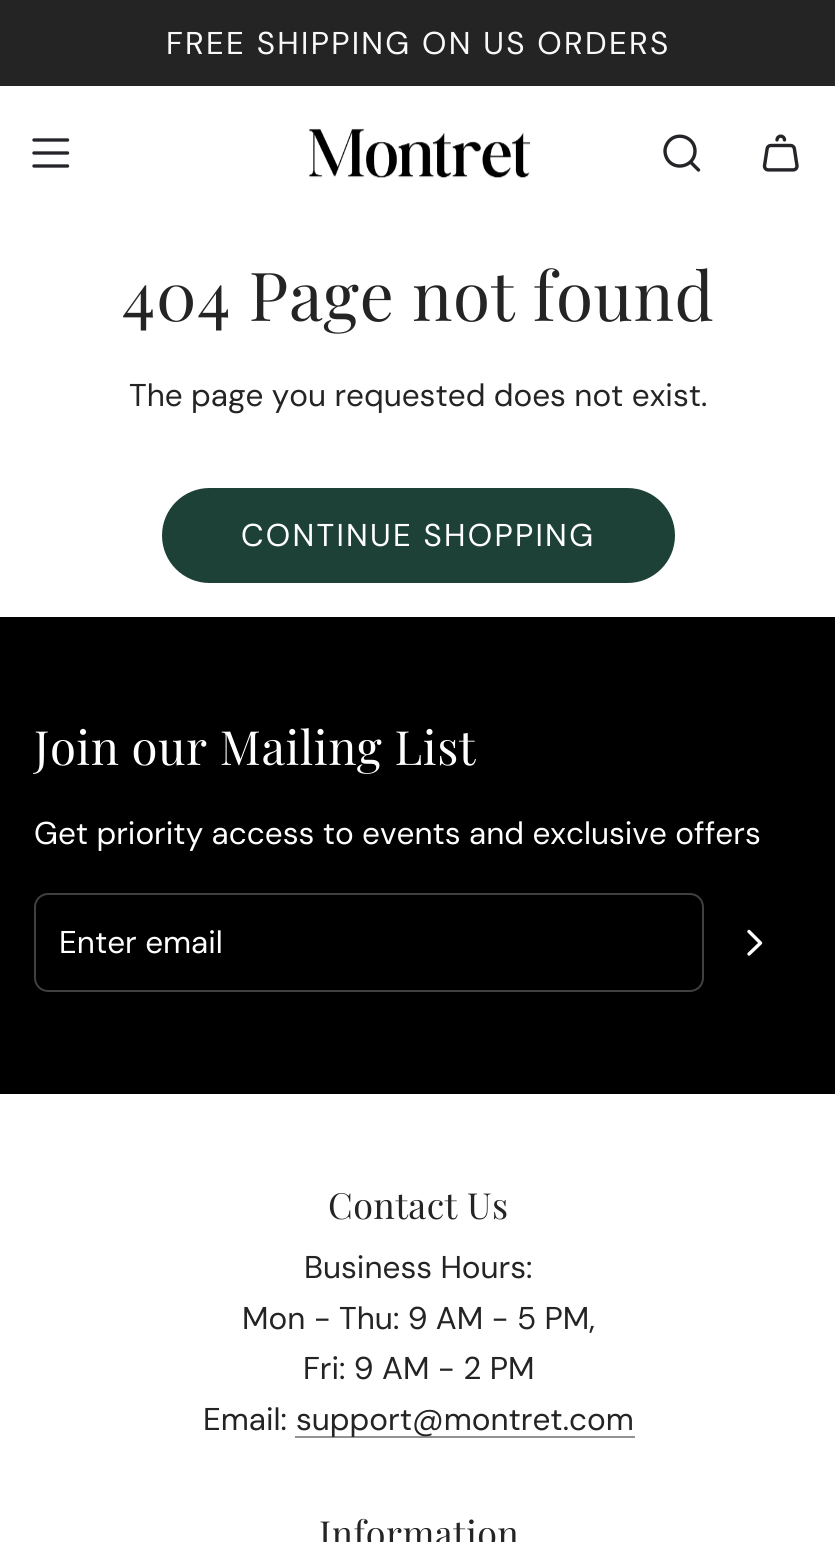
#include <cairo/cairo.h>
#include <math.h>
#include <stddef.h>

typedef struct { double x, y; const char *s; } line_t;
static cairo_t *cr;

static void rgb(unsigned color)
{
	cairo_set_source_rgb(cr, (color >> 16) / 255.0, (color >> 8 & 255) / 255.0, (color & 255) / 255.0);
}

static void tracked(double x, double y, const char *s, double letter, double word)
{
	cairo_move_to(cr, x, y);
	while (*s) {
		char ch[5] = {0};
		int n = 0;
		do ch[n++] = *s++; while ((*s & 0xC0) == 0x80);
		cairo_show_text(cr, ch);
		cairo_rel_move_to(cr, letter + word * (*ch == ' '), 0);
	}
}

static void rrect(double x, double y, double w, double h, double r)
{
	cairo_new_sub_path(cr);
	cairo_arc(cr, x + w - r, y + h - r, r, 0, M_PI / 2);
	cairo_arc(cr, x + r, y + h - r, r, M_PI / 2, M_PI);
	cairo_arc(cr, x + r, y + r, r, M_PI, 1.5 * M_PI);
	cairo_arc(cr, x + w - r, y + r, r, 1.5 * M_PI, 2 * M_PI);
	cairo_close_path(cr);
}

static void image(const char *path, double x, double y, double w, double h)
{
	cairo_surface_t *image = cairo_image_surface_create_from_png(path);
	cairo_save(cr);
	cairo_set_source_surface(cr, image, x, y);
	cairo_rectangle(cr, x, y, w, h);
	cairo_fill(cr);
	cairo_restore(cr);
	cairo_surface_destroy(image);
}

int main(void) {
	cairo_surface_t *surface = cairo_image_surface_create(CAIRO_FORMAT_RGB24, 835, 1542);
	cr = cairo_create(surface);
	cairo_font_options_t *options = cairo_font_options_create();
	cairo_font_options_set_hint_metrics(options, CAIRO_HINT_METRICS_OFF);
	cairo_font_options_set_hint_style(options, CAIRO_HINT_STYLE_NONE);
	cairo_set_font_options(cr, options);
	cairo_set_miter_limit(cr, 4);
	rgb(0xffffff);
	cairo_paint(cr);
	rgb(0x242424);
	cairo_rectangle(cr, 0, 0, 835, 86);
	cairo_fill(cr);
	cairo_new_path(cr);
	cairo_move_to(cr, 34, 140);
	cairo_line_to(cr, 67.5, 140);
	cairo_move_to(cr, 34, 153);
	cairo_line_to(cr, 67.5, 153);
	cairo_move_to(cr, 34, 166);
	cairo_line_to(cr, 67.5, 166);
	rgb(0x262428);
	cairo_set_line_width(cr, 3.4);
	cairo_set_line_cap(cr, CAIRO_LINE_CAP_ROUND);
	cairo_set_line_join(cr, CAIRO_LINE_JOIN_ROUND);
	cairo_stroke(cr);
	image("img/1.png", 309, 128, 222, 50);
	cairo_new_path(cr);
	cairo_move_to(cr, 691, 162.5);
	cairo_line_to(cr, 698.5, 170);
	cairo_move_to(cr, 665, 151);
	cairo_curve_to(cr, 665, 154, 666, 157, 667.5, 159.5);
	cairo_curve_to(cr, 675.5, 171.5, 695, 166, 695, 151);
	cairo_curve_to(cr, 695, 136.5, 675.5, 130.5, 667.5, 143);
	cairo_curve_to(cr, 666, 145.5, 665, 148, 665, 151);
	cairo_close_path(cr);
	cairo_stroke(cr);
	image("img/2.png", 762, 134, 37, 38);
	rgb(0x1e4137);
	rrect(162, 488, 513, 95, 47.5);
	cairo_fill(cr);
	rgb(0x000000);
	cairo_rectangle(cr, 0, 617, 835, 477);
	cairo_fill(cr);
	rrect(35, 894, 668, 97, 13);
	rgb(0x404040);
	cairo_set_line_width(cr, 2);
	cairo_set_line_cap(cr, CAIRO_LINE_CAP_BUTT);
	cairo_set_line_join(cr, CAIRO_LINE_JOIN_MITER);
	cairo_stroke(cr);
	cairo_new_path(cr);
	cairo_move_to(cr, 749, 931.5);
	cairo_line_to(cr, 760.5, 943);
	cairo_line_to(cr, 749, 954);
	rgb(0xffffff);
	cairo_set_line_width(cr, 3.4);
	cairo_set_line_cap(cr, CAIRO_LINE_CAP_ROUND);
	cairo_set_line_join(cr, CAIRO_LINE_JOIN_ROUND);
	cairo_stroke(cr);
	rgb(0x929292);
	cairo_rectangle(cr, 295, 1436, 340, 2);
	cairo_fill(cr);
	cairo_select_font_face(cr, "DM Sans", CAIRO_FONT_SLANT_NORMAL, CAIRO_FONT_WEIGHT_NORMAL);
	cairo_set_font_size(cr, 31.5);
	rgb(0xf9f9fb);
	tracked(166, 54, "FREE SHIPPING ON US ORDERS", 2.25, 0);
	cairo_select_font_face(cr, "Playfair Display", CAIRO_FONT_SLANT_NORMAL, CAIRO_FONT_WEIGHT_NORMAL);
	cairo_set_font_size(cr, 67.5);
	rgb(0x242424);
	tracked(122, 321, "404 Page not found", 0.7, 0);
	cairo_select_font_face(cr, "DM Sans", CAIRO_FONT_SLANT_NORMAL, CAIRO_FONT_WEIGHT_NORMAL);
	cairo_set_font_size(cr, 31.5);
	cairo_move_to(cr, 129, 406);
	cairo_show_text(cr, "The page you requested does not exist.");
	rgb(0xffffff);
	tracked(241, 546, "CONTINUE SHOPPING", 2.25, 0);
	cairo_select_font_face(cr, "Playfair Display", CAIRO_FONT_SLANT_NORMAL, CAIRO_FONT_WEIGHT_NORMAL);
	cairo_set_font_size(cr, 47.25);
	tracked(34, 765, "Join our Mailing List", 0.5, 0);
	cairo_select_font_face(cr, "DM Sans", CAIRO_FONT_SLANT_NORMAL, CAIRO_FONT_WEIGHT_NORMAL);
	cairo_set_font_size(cr, 31.5);
	cairo_move_to(cr, 34, 844);
	cairo_show_text(cr, "Get priority access to events and exclusive offers");
	cairo_move_to(cr, 59, 953);
	cairo_show_text(cr, "Enter email");
	cairo_select_font_face(cr, "Playfair Display", CAIRO_FONT_SLANT_NORMAL, CAIRO_FONT_WEIGHT_NORMAL);
	cairo_set_font_size(cr, 36);
	rgb(0x242424);
	tracked(328, 1219, "Contact Us", 0.4, 0);
	cairo_select_font_face(cr, "DM Sans", CAIRO_FONT_SLANT_NORMAL, CAIRO_FONT_WEIGHT_NORMAL);
	cairo_set_font_size(cr, 31.5);
	{
		static const line_t items[] = {
			{304, 1278, "Business Hours:"},
			{242, 1329, "Mon - Thu: 9 AM - 5 PM,"},
			{303, 1379, "Fri: 9 AM - 2 PM"},
			{203, 1430, "Email:"},
			{296, 1430, "support@montret.com"},
		};
		for (size_t i = 0; i < sizeof items / sizeof *items; i++) {
			cairo_move_to(cr, items[i].x, items[i].y);
			cairo_show_text(cr, items[i].s);
		}
	}
	cairo_select_font_face(cr, "Playfair Display", CAIRO_FONT_SLANT_NORMAL, CAIRO_FONT_WEIGHT_NORMAL);
	cairo_set_font_size(cr, 36);
	tracked(319, 1547, "Information", 0.4, 0);
	cairo_surface_write_to_png(surface, "page.png");
	cairo_font_options_destroy(options);
	cairo_destroy(cr);
	cairo_surface_destroy(surface);
	return 0;
}
